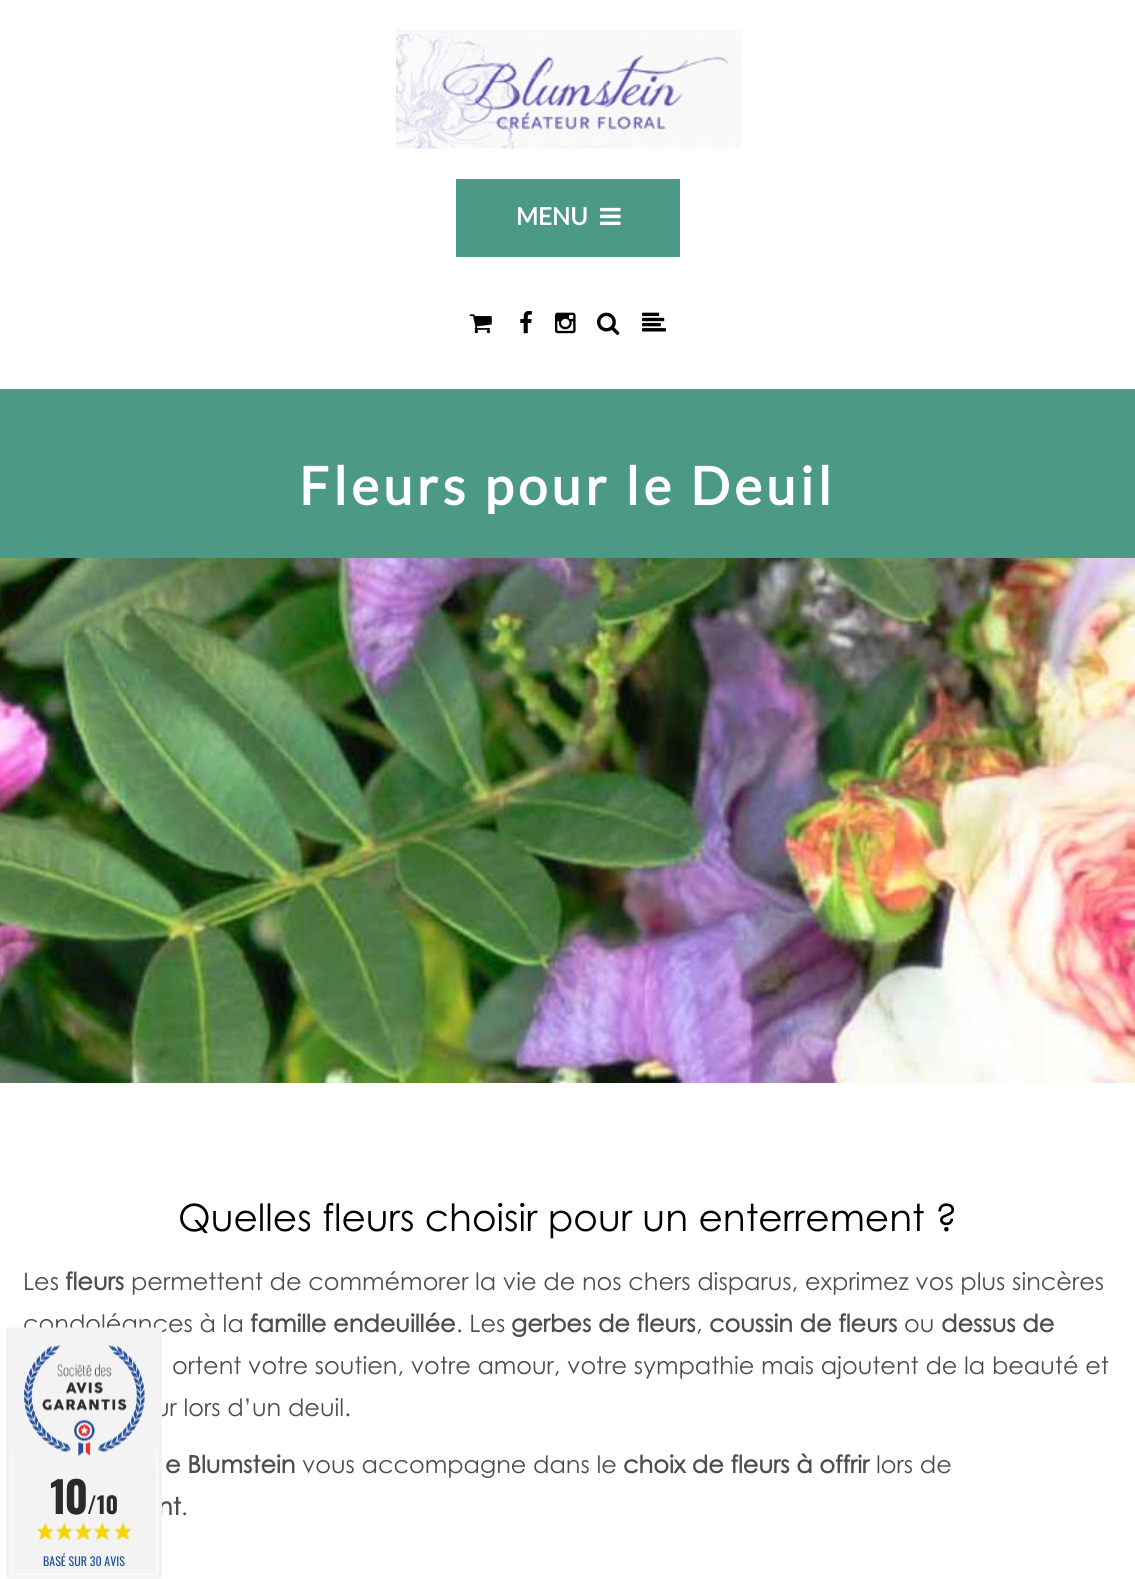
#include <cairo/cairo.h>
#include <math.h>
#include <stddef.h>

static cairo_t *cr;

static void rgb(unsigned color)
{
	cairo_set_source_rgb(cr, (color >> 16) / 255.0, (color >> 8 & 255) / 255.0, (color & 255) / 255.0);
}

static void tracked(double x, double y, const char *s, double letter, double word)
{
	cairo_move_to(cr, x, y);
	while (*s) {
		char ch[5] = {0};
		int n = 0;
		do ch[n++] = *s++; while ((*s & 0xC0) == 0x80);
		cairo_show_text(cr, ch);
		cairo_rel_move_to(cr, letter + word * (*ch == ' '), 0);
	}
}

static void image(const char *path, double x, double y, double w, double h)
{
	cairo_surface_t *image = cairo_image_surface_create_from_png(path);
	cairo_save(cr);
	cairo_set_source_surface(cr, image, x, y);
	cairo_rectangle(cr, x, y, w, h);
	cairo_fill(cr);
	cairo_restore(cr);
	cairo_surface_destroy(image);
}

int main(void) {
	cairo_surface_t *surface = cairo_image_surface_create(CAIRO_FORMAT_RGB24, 1135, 1579);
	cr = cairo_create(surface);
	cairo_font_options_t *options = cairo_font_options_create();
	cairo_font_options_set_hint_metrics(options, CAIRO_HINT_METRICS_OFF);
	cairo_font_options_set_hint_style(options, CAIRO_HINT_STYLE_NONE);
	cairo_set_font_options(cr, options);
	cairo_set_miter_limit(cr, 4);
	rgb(0xffffff);
	cairo_paint(cr);
	image("img/1.png", 396, 30, 345, 119);
	rgb(0x4c9985);
	cairo_rectangle(cr, 456, 179, 224, 78);
	cairo_fill(cr);
	image("img/2.png", 600, 207, 21, 18);
	image("img/3.png", 469, 314, 23, 20);
	image("img/4.png", 520, 310, 12, 24);
	image("img/5.png", 555, 312, 21, 22);
	image("img/6.png", 597, 312, 23, 23);
	image("img/7.png", 642, 312, 24, 20);
	cairo_rectangle(cr, 0, 389, 1135, 169);
	cairo_fill(cr);
	image("img/8.png", 0, 558, 1135, 525);
	cairo_select_font_face(cr, "Lato", CAIRO_FONT_SLANT_NORMAL, CAIRO_FONT_WEIGHT_BOLD);
	cairo_set_font_size(cr, 24);
	rgb(0xffffff);
	cairo_move_to(cr, 516, 225);
	cairo_show_text(cr, "MENU");
	cairo_set_font_size(cr, 52.5);
	tracked(299, 505, "Fleurs pour le Deuil", 4.5, 0);
	cairo_select_font_face(cr, "Century Gothic", CAIRO_FONT_SLANT_NORMAL, CAIRO_FONT_WEIGHT_NORMAL);
	cairo_set_font_size(cr, 37.5);
	rgb(0x000000);
	cairo_move_to(cr, 178, 1231);
	cairo_show_text(cr, "Quelles fleurs choisir pour un enterrement ?");
	cairo_set_font_size(cr, 24);
	rgb(0x4c4d4f);
	cairo_move_to(cr, 23, 1290);
	cairo_show_text(cr, "Les");
	cairo_select_font_face(cr, "Century Gothic", CAIRO_FONT_SLANT_NORMAL, CAIRO_FONT_WEIGHT_BOLD);
	cairo_move_to(cr, 65, 1290);
	cairo_show_text(cr, "fleurs");
	cairo_select_font_face(cr, "Century Gothic", CAIRO_FONT_SLANT_NORMAL, CAIRO_FONT_WEIGHT_NORMAL);
	cairo_move_to(cr, 131, 1290);
	cairo_show_text(cr, "permettent de commémorer la vie de nos chers disparus, exprimez vos plus sincères");
	cairo_move_to(cr, 23, 1332);
	cairo_show_text(cr, "condoléances à la");
	cairo_select_font_face(cr, "Century Gothic", CAIRO_FONT_SLANT_NORMAL, CAIRO_FONT_WEIGHT_BOLD);
	cairo_move_to(cr, 250, 1332);
	cairo_show_text(cr, "famille endeuillée");
	cairo_select_font_face(cr, "Century Gothic", CAIRO_FONT_SLANT_NORMAL, CAIRO_FONT_WEIGHT_NORMAL);
	cairo_move_to(cr, 456, 1332);
	cairo_show_text(cr, ". Les");
	cairo_select_font_face(cr, "Century Gothic", CAIRO_FONT_SLANT_NORMAL, CAIRO_FONT_WEIGHT_BOLD);
	cairo_move_to(cr, 511, 1332);
	cairo_show_text(cr, "gerbes de fleurs");
	cairo_select_font_face(cr, "Century Gothic", CAIRO_FONT_SLANT_NORMAL, CAIRO_FONT_WEIGHT_NORMAL);
	cairo_move_to(cr, 696, 1332);
	cairo_show_text(cr, ",");
	cairo_select_font_face(cr, "Century Gothic", CAIRO_FONT_SLANT_NORMAL, CAIRO_FONT_WEIGHT_BOLD);
	cairo_move_to(cr, 709, 1332);
	cairo_show_text(cr, "coussin de fleurs");
	cairo_select_font_face(cr, "Century Gothic", CAIRO_FONT_SLANT_NORMAL, CAIRO_FONT_WEIGHT_NORMAL);
	cairo_move_to(cr, 904, 1332);
	cairo_show_text(cr, "ou");
	cairo_select_font_face(cr, "Century Gothic", CAIRO_FONT_SLANT_NORMAL, CAIRO_FONT_WEIGHT_BOLD);
	cairo_move_to(cr, 941, 1332);
	cairo_show_text(cr, "dessus de");
	cairo_select_font_face(cr, "Century Gothic", CAIRO_FONT_SLANT_NORMAL, CAIRO_FONT_WEIGHT_NORMAL);
	cairo_move_to(cr, 172, 1374);
	cairo_show_text(cr, "ortent votre soutien, votre amour, votre sympathie mais ajoutent de la beauté et");
	cairo_move_to(cr, 155, 1416);
	cairo_show_text(cr, "ur lors d’un deuil.");
	cairo_select_font_face(cr, "Century Gothic", CAIRO_FONT_SLANT_NORMAL, CAIRO_FONT_WEIGHT_BOLD);
	cairo_move_to(cr, 165, 1473);
	cairo_show_text(cr, "e Blumstein");
	cairo_select_font_face(cr, "Century Gothic", CAIRO_FONT_SLANT_NORMAL, CAIRO_FONT_WEIGHT_NORMAL);
	cairo_move_to(cr, 302, 1473);
	cairo_show_text(cr, "vous accompagne dans le");
	cairo_select_font_face(cr, "Century Gothic", CAIRO_FONT_SLANT_NORMAL, CAIRO_FONT_WEIGHT_BOLD);
	cairo_move_to(cr, 623, 1473);
	cairo_show_text(cr, "choix de fleurs à offrir");
	cairo_select_font_face(cr, "Century Gothic", CAIRO_FONT_SLANT_NORMAL, CAIRO_FONT_WEIGHT_NORMAL);
	cairo_move_to(cr, 876, 1473);
	cairo_show_text(cr, "lors de");
	cairo_select_font_face(cr, "Century Gothic", CAIRO_FONT_SLANT_NORMAL, CAIRO_FONT_WEIGHT_BOLD);
	cairo_move_to(cr, 158, 1515);
	cairo_show_text(cr, "nt");
	cairo_select_font_face(cr, "Century Gothic", CAIRO_FONT_SLANT_NORMAL, CAIRO_FONT_WEIGHT_NORMAL);
	cairo_move_to(cr, 181, 1515);
	cairo_show_text(cr, ".");
	image("img/9.png", 6, 1327, 156, 252);
	cairo_select_font_face(cr, "Oswald", CAIRO_FONT_SLANT_NORMAL, CAIRO_FONT_WEIGHT_BOLD);
	cairo_set_font_size(cr, 43);
	rgb(0x2c292d);
	tracked(50, 1514, "10", -2, 0);
	cairo_set_font_size(cr, 23);
	cairo_move_to(cr, 87, 1514);
	cairo_show_text(cr, "/10");
	image("img/10.png", 37, 1522, 94, 19);
	cairo_select_font_face(cr, "Oswald", CAIRO_FONT_SLANT_NORMAL, CAIRO_FONT_WEIGHT_NORMAL);
	cairo_set_font_size(cr, 12);
	rgb(0x1c5399);
	cairo_move_to(cr, 43, 1566);
	cairo_show_text(cr, "BASÉ SUR 30 AVIS");
	cairo_surface_write_to_png(surface, "page.png");
	cairo_font_options_destroy(options);
	cairo_destroy(cr);
	cairo_surface_destroy(surface);
	return 0;
}
